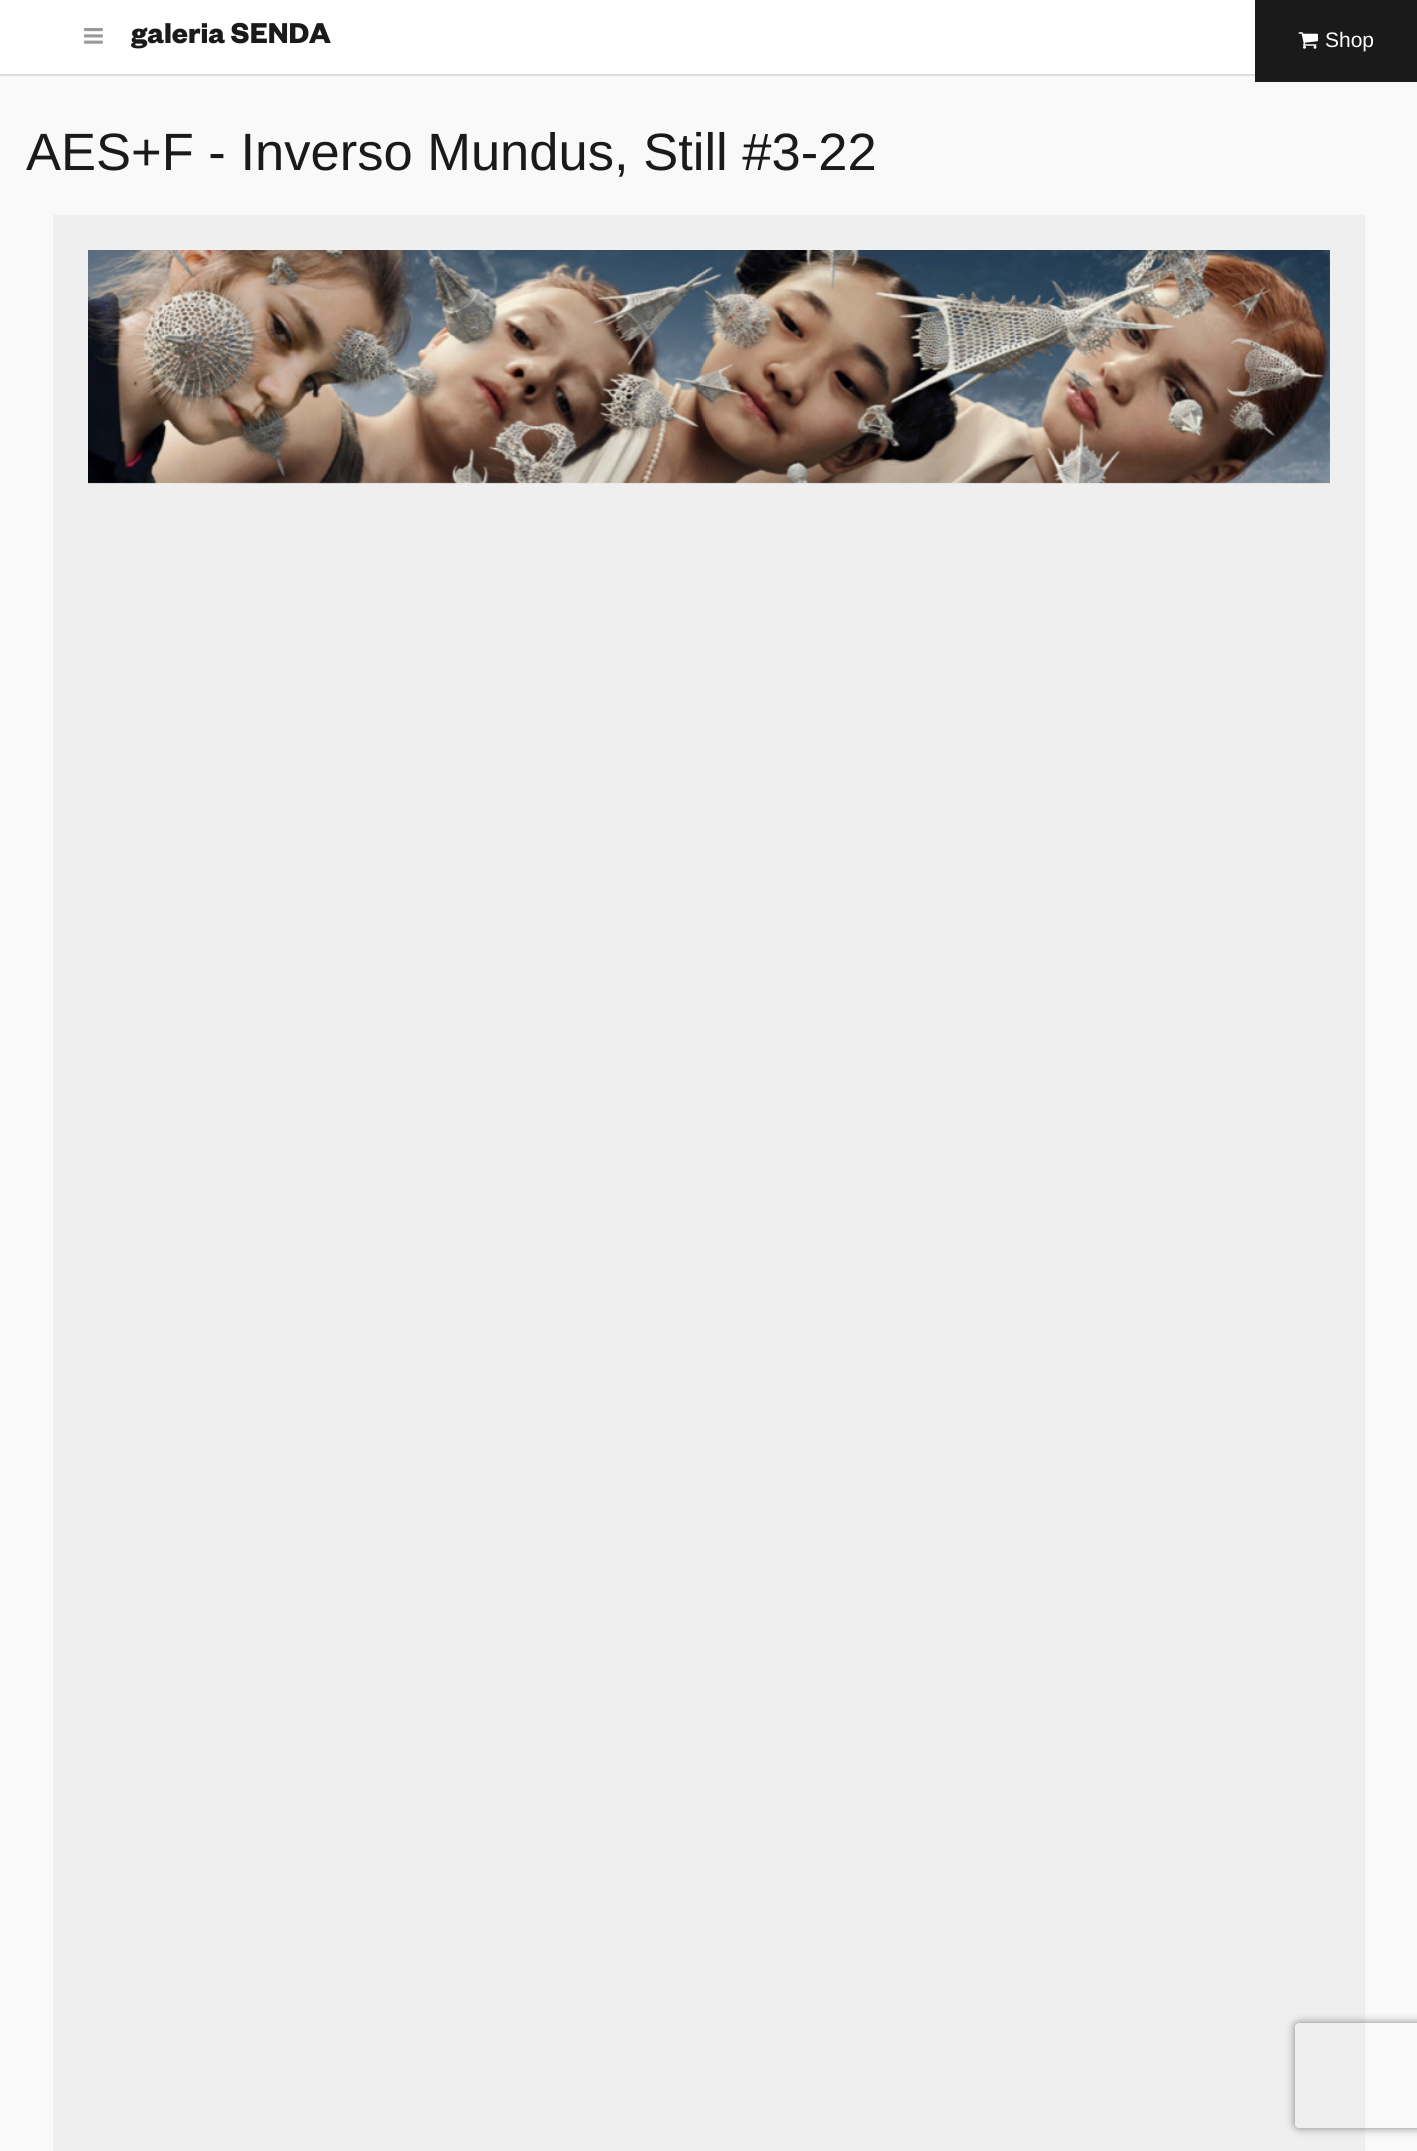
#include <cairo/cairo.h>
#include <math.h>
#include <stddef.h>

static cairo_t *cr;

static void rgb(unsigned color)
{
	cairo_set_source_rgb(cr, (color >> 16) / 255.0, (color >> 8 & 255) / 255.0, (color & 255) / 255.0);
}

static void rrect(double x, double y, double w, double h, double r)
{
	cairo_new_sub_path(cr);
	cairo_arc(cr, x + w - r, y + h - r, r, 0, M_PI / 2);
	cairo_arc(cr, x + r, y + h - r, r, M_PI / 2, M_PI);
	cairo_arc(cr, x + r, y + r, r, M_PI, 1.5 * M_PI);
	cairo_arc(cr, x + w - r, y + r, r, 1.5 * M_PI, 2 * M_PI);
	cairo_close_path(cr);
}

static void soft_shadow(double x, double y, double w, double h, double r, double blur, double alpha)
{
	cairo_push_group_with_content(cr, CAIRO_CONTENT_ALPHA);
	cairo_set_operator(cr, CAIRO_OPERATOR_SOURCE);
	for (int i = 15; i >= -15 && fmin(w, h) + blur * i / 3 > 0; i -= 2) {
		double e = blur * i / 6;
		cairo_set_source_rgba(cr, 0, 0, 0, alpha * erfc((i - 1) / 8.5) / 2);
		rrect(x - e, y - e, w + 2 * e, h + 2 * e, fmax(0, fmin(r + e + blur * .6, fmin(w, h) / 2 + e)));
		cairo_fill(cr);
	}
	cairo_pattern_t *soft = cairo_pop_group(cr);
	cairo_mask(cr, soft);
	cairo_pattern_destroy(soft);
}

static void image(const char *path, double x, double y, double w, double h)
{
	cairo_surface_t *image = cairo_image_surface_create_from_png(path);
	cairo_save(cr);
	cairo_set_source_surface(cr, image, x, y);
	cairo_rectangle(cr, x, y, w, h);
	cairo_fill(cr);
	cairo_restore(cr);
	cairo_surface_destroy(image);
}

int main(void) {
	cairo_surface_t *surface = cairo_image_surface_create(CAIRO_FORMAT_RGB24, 1417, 2151);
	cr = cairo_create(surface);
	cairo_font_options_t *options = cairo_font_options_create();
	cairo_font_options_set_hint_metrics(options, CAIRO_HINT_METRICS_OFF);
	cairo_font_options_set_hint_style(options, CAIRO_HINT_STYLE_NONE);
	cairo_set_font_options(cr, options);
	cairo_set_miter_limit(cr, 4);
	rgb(0xf9f9f9);
	cairo_paint(cr);
	rgb(0xffffff);
	cairo_rectangle(cr, 0, 0, 1255, 74);
	cairo_fill(cr);
	rgb(0xdddddd);
	cairo_rectangle(cr, 0, 74, 1255, 2);
	cairo_fill(cr);
	image("img/1.png", 84, 28, 19, 16);
	rgb(0x1a1a1a);
	cairo_rectangle(cr, 1255, 0, 162, 82);
	cairo_fill(cr);
	image("img/2.png", 1298, 32, 20, 17);
	rgb(0xefefef);
	cairo_rectangle(cr, 53, 215, 1312, 1936);
	cairo_fill(cr);
	image("img/3.png", 88, 250, 1242, 234);
	cairo_save(cr);
	cairo_set_fill_rule(cr, CAIRO_FILL_RULE_EVEN_ODD);
	cairo_new_path(cr);
	cairo_move_to(cr, 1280, 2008);
	cairo_line_to(cr, 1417, 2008);
	cairo_line_to(cr, 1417, 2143);
	cairo_line_to(cr, 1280, 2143);
	cairo_close_path(cr);
	cairo_move_to(cr, 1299, 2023);
	cairo_line_to(cr, 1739, 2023);
	cairo_curve_to(cr, 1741, 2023, 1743, 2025, 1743, 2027);
	cairo_line_to(cr, 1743, 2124);
	cairo_curve_to(cr, 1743, 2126, 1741, 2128, 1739, 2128);
	cairo_line_to(cr, 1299, 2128);
	cairo_curve_to(cr, 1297, 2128, 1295, 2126, 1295, 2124);
	cairo_line_to(cr, 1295, 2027);
	cairo_curve_to(cr, 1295, 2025, 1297, 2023, 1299, 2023);
	cairo_close_path(cr);
	cairo_clip(cr);
	rgb(0x808080);
	soft_shadow(1295, 2023, 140, 105, 4, 4.5, 1);
	cairo_restore(cr);
	cairo_select_font_face(cr, "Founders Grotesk", CAIRO_FONT_SLANT_NORMAL, CAIRO_FONT_WEIGHT_BOLD);
	cairo_set_font_size(cr, 31.5);
	rgb(0x1a1a1a);
	cairo_move_to(cr, 131, 43);
	cairo_show_text(cr, "galeria SENDA");
	cairo_select_font_face(cr, "Liberation Sans", CAIRO_FONT_SLANT_NORMAL, CAIRO_FONT_WEIGHT_NORMAL);
	cairo_set_font_size(cr, 21);
	rgb(0xffffff);
	cairo_move_to(cr, 1325, 47);
	cairo_show_text(cr, "Shop");
	cairo_set_font_size(cr, 52.5);
	rgb(0x1a1a1a);
	cairo_move_to(cr, 26, 170);
	cairo_show_text(cr, "AES+F - Inverso Mundus, Still #3-22");
	cairo_surface_write_to_png(surface, "page.png");
	cairo_font_options_destroy(options);
	cairo_destroy(cr);
	cairo_surface_destroy(surface);
	return 0;
}
